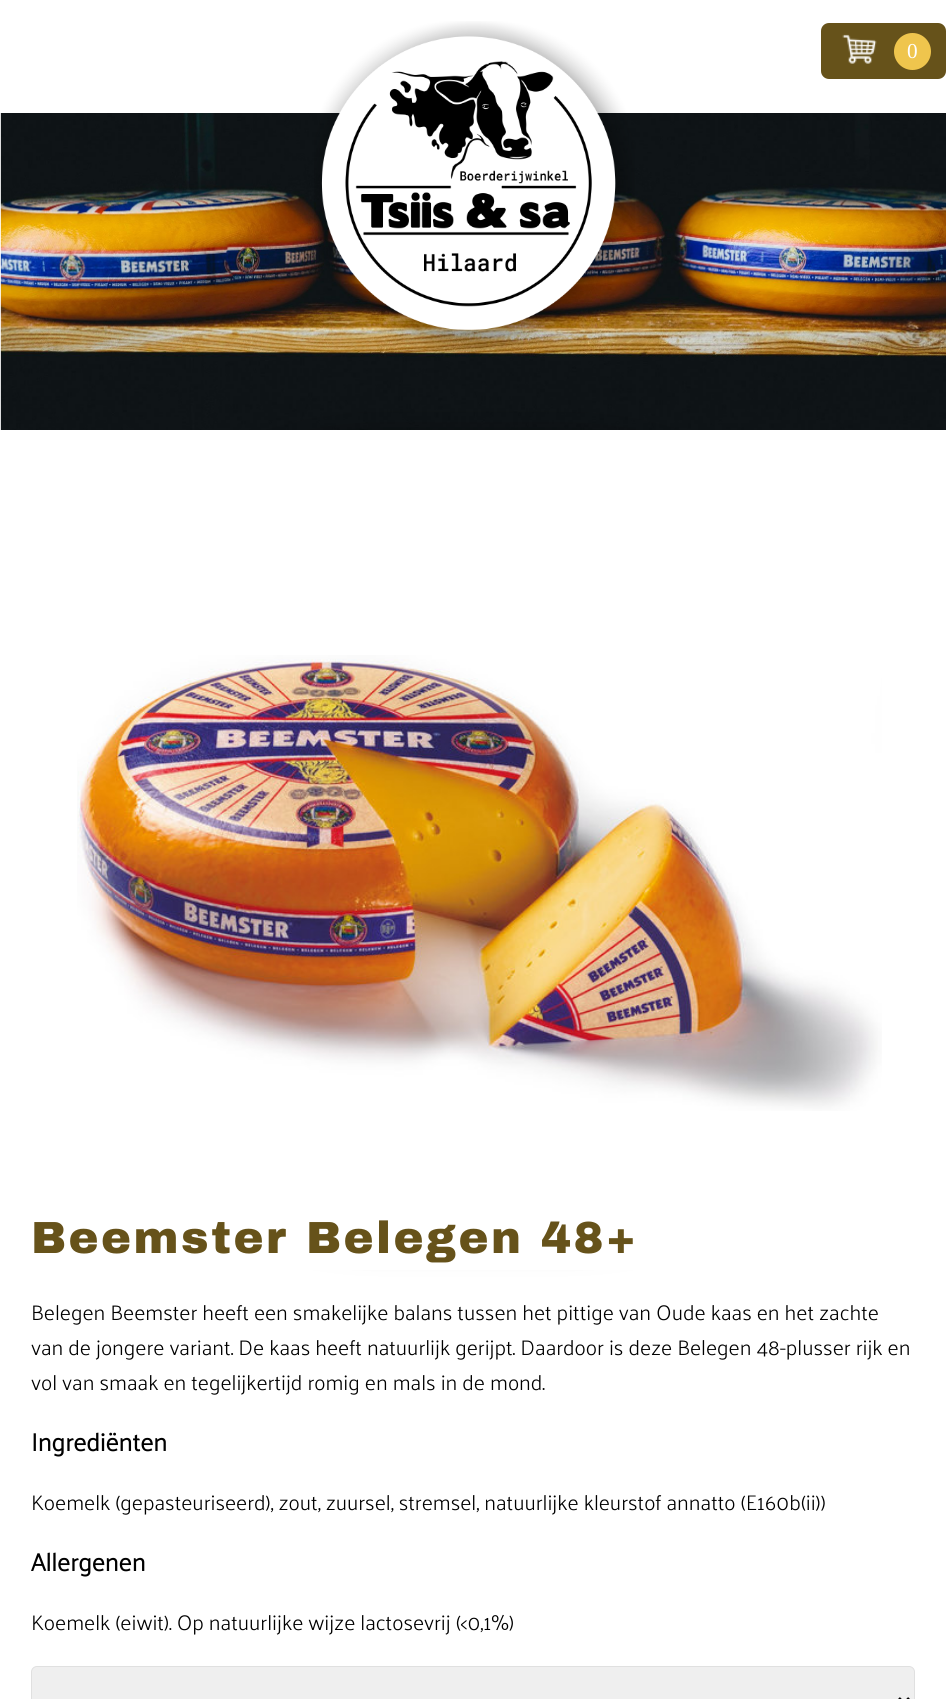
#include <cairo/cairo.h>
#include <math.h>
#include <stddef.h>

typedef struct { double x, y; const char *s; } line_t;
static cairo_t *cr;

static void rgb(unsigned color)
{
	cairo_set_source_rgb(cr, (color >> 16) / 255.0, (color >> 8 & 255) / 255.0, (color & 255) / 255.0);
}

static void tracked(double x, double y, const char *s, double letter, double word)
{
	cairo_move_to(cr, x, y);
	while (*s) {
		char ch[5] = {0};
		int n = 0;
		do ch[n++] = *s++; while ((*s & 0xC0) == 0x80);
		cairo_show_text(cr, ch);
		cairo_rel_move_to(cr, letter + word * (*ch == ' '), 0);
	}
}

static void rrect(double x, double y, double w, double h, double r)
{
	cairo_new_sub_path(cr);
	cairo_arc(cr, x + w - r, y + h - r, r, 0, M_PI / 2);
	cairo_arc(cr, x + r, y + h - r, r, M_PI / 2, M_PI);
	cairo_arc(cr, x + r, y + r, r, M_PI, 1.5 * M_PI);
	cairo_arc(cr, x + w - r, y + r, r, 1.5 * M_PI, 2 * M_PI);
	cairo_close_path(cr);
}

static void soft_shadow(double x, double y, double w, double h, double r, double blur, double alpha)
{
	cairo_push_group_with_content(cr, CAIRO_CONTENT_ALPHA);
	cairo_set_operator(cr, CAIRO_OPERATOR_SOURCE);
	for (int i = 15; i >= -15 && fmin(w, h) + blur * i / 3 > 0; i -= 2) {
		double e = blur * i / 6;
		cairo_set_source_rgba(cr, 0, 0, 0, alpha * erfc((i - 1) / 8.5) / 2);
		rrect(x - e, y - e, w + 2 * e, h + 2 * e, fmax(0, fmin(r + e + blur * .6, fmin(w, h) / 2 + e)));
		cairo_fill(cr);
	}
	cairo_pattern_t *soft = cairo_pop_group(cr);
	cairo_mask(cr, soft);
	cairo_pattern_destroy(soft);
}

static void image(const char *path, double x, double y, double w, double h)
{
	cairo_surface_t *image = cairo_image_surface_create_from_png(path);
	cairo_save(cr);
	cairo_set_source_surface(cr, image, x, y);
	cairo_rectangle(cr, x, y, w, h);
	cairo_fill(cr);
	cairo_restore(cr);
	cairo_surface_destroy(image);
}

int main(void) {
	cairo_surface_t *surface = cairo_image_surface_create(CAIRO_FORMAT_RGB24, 946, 1699);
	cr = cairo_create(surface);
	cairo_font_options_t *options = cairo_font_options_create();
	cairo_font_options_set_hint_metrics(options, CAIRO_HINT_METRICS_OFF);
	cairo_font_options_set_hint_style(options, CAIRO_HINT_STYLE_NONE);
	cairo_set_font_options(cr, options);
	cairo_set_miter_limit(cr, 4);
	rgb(0xffffff);
	cairo_paint(cr);
	image("img/3.png", 0, 113, 946, 317);
	image("img/1.png", 314, 21, 321, 332);
	rgb(0x66521a);
	rrect(821, 23, 125, 56, 8);
	cairo_fill(cr);
	image("img/2.png", 842, 34, 35, 30);
	rgb(0xefc54d);
	cairo_arc(cr, 912.5, 51.5, 18.5, 0, 2 * M_PI);
	cairo_fill(cr);
	rgb(0x000000);
	soft_shadow(0, 430, 946, 813, 375, 15.5, 0.25);
	rgb(0xffffff);
	cairo_rectangle(cr, 0, 430, 946, 840);
	cairo_fill(cr);
	image("img/4.png", 77, 655, 805, 456);
	rgb(0xefefef);
	rrect(31.5, 1666.5, 883, 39, 5.5);
	cairo_fill_preserve(cr);
	rgb(0xe0e0e0);
	cairo_set_line_width(cr, 1);
	cairo_stroke(cr);
	cairo_new_path(cr);
	cairo_move_to(cr, 899, 1698);
	cairo_line_to(cr, 904, 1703);
	cairo_line_to(cr, 909, 1698);
	rgb(0x000000);
	cairo_set_line_width(cr, 2.5);
	cairo_stroke(cr);
	cairo_select_font_face(cr, "Liberation Serif", CAIRO_FONT_SLANT_NORMAL, CAIRO_FONT_WEIGHT_NORMAL);
	cairo_set_font_size(cr, 21.25);
	rgb(0xffffff);
	cairo_move_to(cr, 907, 58);
	cairo_show_text(cr, "0");
	cairo_select_font_face(cr, "Archivo Black Black", CAIRO_FONT_SLANT_NORMAL, CAIRO_FONT_WEIGHT_NORMAL);
	cairo_set_font_size(cr, 45);
	rgb(0x66521a);
	tracked(31, 1253, "Beemster Belegen 48+", 2.5, 0);
	cairo_select_font_face(cr, "Palanquin Light", CAIRO_FONT_SLANT_NORMAL, CAIRO_FONT_WEIGHT_NORMAL);
	cairo_set_font_size(cr, 21.25);
	rgb(0x000000);
	{
		static const line_t items[] = {
			{31, 1320, "Belegen Beemster heeft een smakelijke balans tussen het pittige van Oude kaas en het zachte"},
			{31, 1355, "van de jongere variant. De kaas heeft natuurlijk gerijpt. Daardoor is deze Belegen 48-plusser rijk en"},
			{31, 1390, "vol van smaak en tegelijkertijd romig en mals in de mond."},
		};
		for (size_t i = 0; i < sizeof items / sizeof *items; i++) {
			cairo_move_to(cr, items[i].x, items[i].y);
			cairo_show_text(cr, items[i].s);
		}
	}
	cairo_select_font_face(cr, "Palanquin", CAIRO_FONT_SLANT_NORMAL, CAIRO_FONT_WEIGHT_BOLD);
	cairo_set_font_size(cr, 25);
	cairo_move_to(cr, 31, 1451);
	cairo_show_text(cr, "Ingrediënten");
	cairo_select_font_face(cr, "Palanquin Light", CAIRO_FONT_SLANT_NORMAL, CAIRO_FONT_WEIGHT_NORMAL);
	cairo_set_font_size(cr, 21.25);
	cairo_move_to(cr, 31, 1510);
	cairo_show_text(cr, "Koemelk (gepasteuriseerd), zout, zuursel, stremsel, natuurlijke kleurstof annatto (E160b(ii))");
	cairo_select_font_face(cr, "Palanquin", CAIRO_FONT_SLANT_NORMAL, CAIRO_FONT_WEIGHT_BOLD);
	cairo_set_font_size(cr, 25);
	cairo_move_to(cr, 31, 1571);
	cairo_show_text(cr, "Allergenen");
	cairo_select_font_face(cr, "Palanquin Light", CAIRO_FONT_SLANT_NORMAL, CAIRO_FONT_WEIGHT_NORMAL);
	cairo_set_font_size(cr, 21.25);
	cairo_move_to(cr, 31, 1630);
	cairo_show_text(cr, "Koemelk (eiwit). Op natuurlijke wijze lactosevrij (<0,1%)");
	cairo_surface_write_to_png(surface, "page.png");
	cairo_font_options_destroy(options);
	cairo_destroy(cr);
	cairo_surface_destroy(surface);
	return 0;
}
